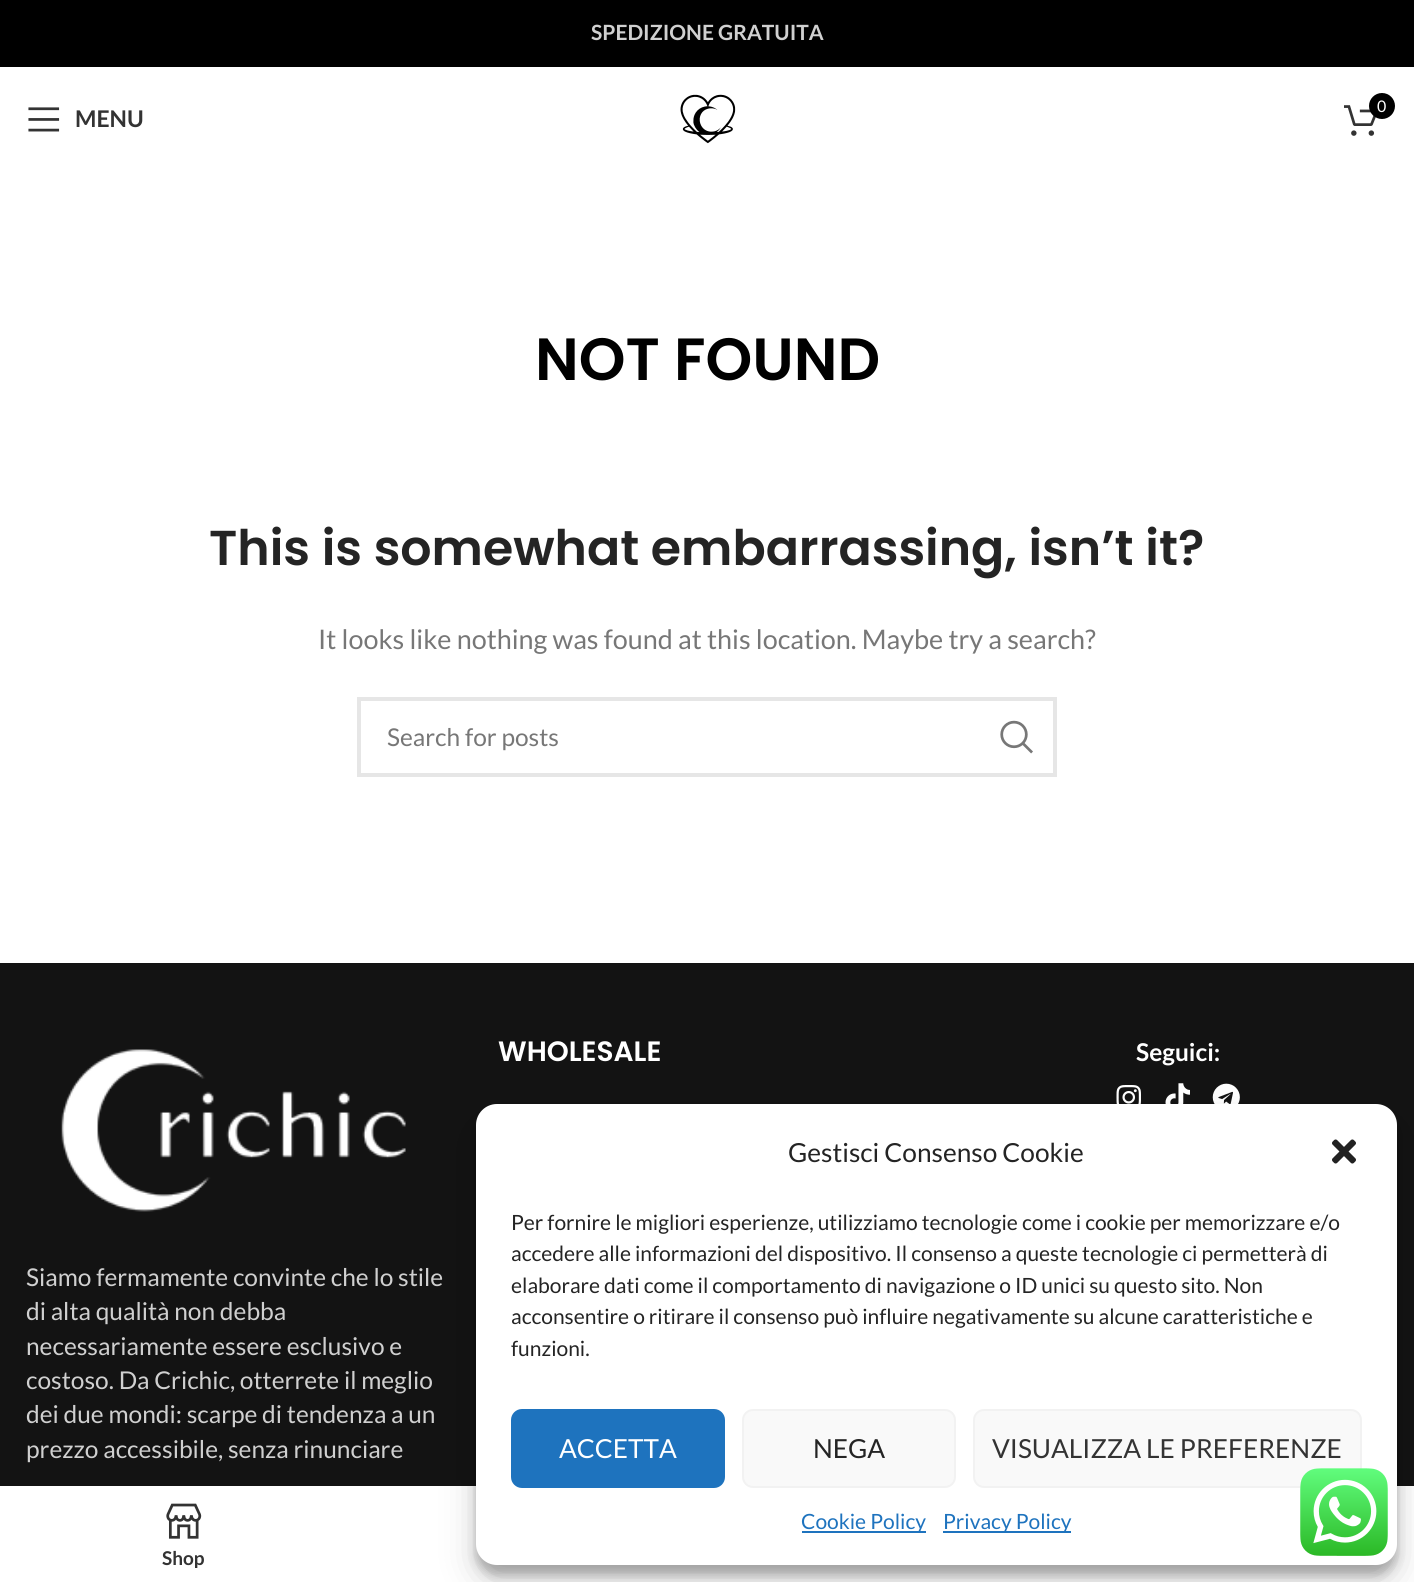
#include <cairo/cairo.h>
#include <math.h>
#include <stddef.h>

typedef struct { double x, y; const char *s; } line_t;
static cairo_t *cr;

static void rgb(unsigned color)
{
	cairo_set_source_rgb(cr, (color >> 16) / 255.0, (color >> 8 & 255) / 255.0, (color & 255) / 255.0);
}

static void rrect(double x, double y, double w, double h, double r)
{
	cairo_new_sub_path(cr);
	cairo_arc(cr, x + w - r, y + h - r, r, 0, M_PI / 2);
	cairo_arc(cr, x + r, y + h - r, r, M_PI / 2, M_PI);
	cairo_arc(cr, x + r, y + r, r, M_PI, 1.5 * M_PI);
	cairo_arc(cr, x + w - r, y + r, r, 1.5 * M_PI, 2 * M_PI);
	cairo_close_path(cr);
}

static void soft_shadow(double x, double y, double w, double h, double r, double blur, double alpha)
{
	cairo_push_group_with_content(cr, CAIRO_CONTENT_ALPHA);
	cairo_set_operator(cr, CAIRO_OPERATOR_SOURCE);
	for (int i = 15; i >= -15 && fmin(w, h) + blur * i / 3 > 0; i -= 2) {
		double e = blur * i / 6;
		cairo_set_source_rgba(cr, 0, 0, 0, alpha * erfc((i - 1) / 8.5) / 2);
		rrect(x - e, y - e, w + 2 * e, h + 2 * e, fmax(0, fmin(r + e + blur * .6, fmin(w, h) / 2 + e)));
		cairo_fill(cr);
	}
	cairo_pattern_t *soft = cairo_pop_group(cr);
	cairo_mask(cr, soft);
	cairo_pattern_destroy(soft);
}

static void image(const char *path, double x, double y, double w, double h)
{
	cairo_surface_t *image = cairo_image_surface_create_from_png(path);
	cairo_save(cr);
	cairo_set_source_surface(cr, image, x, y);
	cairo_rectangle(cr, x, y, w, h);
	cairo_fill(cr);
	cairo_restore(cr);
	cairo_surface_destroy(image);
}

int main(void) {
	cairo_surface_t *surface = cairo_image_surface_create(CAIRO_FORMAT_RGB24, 1414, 1582);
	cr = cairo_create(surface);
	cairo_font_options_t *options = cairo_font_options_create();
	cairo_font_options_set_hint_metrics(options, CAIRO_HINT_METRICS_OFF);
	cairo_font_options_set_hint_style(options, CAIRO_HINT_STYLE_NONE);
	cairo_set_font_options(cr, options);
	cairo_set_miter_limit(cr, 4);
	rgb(0xffffff);
	cairo_paint(cr);
	rgb(0x000000);
	cairo_rectangle(cr, 0, 0, 1414, 67);
	cairo_fill(cr);
	image("img/1.png", 680, 94, 56, 50);
	image("img/2.png", 1344, 105, 32, 31);
	cairo_arc(cr, 1382, 106, 13, 0, 2 * M_PI);
	cairo_fill(cr);
	image("img/3.png", 28, 107, 32, 25);
	cairo_rectangle(cr, 359, 699, 696, 76);
	rgb(0xe6e6e6);
	cairo_set_line_width(cr, 4);
	cairo_stroke(cr);
	image("img/4.png", 1000, 720, 33, 34);
	rgb(0x131313);
	cairo_rectangle(cr, 0, 963, 1414, 523);
	cairo_fill(cr);
	image("img/5.png", 1116, 1085, 25, 19);
	image("img/6.png", 1165, 1083, 25, 21);
	image("img/7.png", 1212, 1083, 28, 21);
	image("img/8.png", 61, 1049, 345, 163);
	rgb(0x000000);
	soft_shadow(0, 1486, 1414, 96, 0, 8, 0.12);
	rgb(0xffffff);
	cairo_rectangle(cr, 0, 1486, 1414, 96);
	cairo_fill(cr);
	rgb(0x000000);
	soft_shadow(476, 1115, 921, 460, 21, 5, 0.23);
	soft_shadow(476, 1122, 921, 460, 21, 17.5, 0.19);
	rgb(0xffffff);
	rrect(476, 1104, 921, 461, 21);
	cairo_fill(cr);
	image("img/9.png", 1332, 1139, 24, 25);
	rgb(0x1e73be);
	rrect(512, 1410, 212, 77, 10);
	cairo_fill_preserve(cr);
	cairo_set_line_width(cr, 2);
	cairo_stroke(cr);
	rgb(0xf9f9f9);
	rrect(743, 1410, 212, 77, 10);
	cairo_fill_preserve(cr);
	rgb(0xf2f2f2);
	cairo_stroke(cr);
	rgb(0xf9f9f9);
	rrect(974, 1410, 387, 77, 10);
	cairo_fill_preserve(cr);
	rgb(0xf2f2f2);
	cairo_stroke(cr);
	rgb(0x1e73be);
	cairo_rectangle(cr, 802, 1531, 124, 2);
	cairo_fill(cr);
	cairo_rectangle(cr, 943, 1531, 128, 2);
	cairo_fill(cr);
	image("img/10.png", 1300, 1468, 88, 88);
	image("img/11.png", 166, 1503, 36, 36);
	cairo_select_font_face(cr, "Lato", CAIRO_FONT_SLANT_NORMAL, CAIRO_FONT_WEIGHT_BOLD);
	cairo_set_font_size(cr, 21);
	rgb(0xd0d0d0);
	cairo_move_to(cr, 591, 40);
	cairo_show_text(cr, "SPEDIZIONE GRATUITA");
	cairo_select_font_face(cr, "Lato", CAIRO_FONT_SLANT_NORMAL, CAIRO_FONT_WEIGHT_NORMAL);
	cairo_set_font_size(cr, 16);
	rgb(0xffffff);
	cairo_move_to(cr, 1377, 112);
	cairo_show_text(cr, "0");
	cairo_select_font_face(cr, "Lato", CAIRO_FONT_SLANT_NORMAL, CAIRO_FONT_WEIGHT_BOLD);
	cairo_set_font_size(cr, 23);
	rgb(0x333333);
	cairo_move_to(cr, 75, 127);
	cairo_show_text(cr, "MENU");
	cairo_select_font_face(cr, "Poppins SemiBold", CAIRO_FONT_SLANT_NORMAL, CAIRO_FONT_WEIGHT_NORMAL);
	cairo_set_font_size(cr, 59.5);
	rgb(0x000000);
	cairo_move_to(cr, 535, 380);
	cairo_show_text(cr, "NOT FOUND");
	cairo_set_font_size(cr, 49);
	rgb(0x242424);
	cairo_move_to(cr, 209, 565);
	cairo_show_text(cr, "This is somewhat embarrassing, isn’t it?");
	cairo_select_font_face(cr, "Lato", CAIRO_FONT_SLANT_NORMAL, CAIRO_FONT_WEIGHT_NORMAL);
	cairo_set_font_size(cr, 26.95);
	rgb(0x777777);
	cairo_move_to(cr, 318, 649);
	cairo_show_text(cr, "It looks like nothing was found at this location. Maybe try a search?");
	cairo_set_font_size(cr, 24.5);
	cairo_move_to(cr, 387, 746);
	cairo_show_text(cr, "Search for posts");
	cairo_select_font_face(cr, "Poppins SemiBold", CAIRO_FONT_SLANT_NORMAL, CAIRO_FONT_WEIGHT_NORMAL);
	cairo_set_font_size(cr, 28);
	rgb(0xffffff);
	cairo_move_to(cr, 498, 1061);
	cairo_show_text(cr, "WHOLESALE");
	cairo_select_font_face(cr, "Lato", CAIRO_FONT_SLANT_NORMAL, CAIRO_FONT_WEIGHT_BOLD);
	cairo_set_font_size(cr, 24.5);
	cairo_move_to(cr, 1136, 1061);
	cairo_show_text(cr, "Seguici:");
	cairo_select_font_face(cr, "Lato", CAIRO_FONT_SLANT_NORMAL, CAIRO_FONT_WEIGHT_NORMAL);
	rgb(0xd0d0d0);
	{
		static const line_t items[] = {
			{26, 1286, "Siamo fermamente convinte che lo stile"},
			{26, 1320, "di alta qualità non debba"},
			{26, 1355, "necessariamente essere esclusivo e"},
			{26, 1389, "costoso. Da Crichic, otterrete il meglio"},
			{26, 1423, "dei due mondi: scarpe di tendenza a un"},
			{26, 1458, "prezzo accessibile, senza rinunciare"},
		};
		for (size_t i = 0; i < sizeof items / sizeof *items; i++) {
			cairo_move_to(cr, items[i].x, items[i].y);
			cairo_show_text(cr, items[i].s);
		}
	}
	cairo_set_font_size(cr, 26.25);
	rgb(0x242424);
	cairo_move_to(cr, 788, 1162);
	cairo_show_text(cr, "Gestisci Consenso Cookie");
	cairo_set_font_size(cr, 21);
	{
		static const line_t items[] = {
			{511, 1230, "Per fornire le migliori esperienze, utilizziamo tecnologie come i cookie per memorizzare e/o"},
			{511, 1261, "accedere alle informazioni del dispositivo. Il consenso a queste tecnologie ci permetterà di"},
			{511, 1293, "elaborare dati come il comportamento di navigazione o ID unici su questo sito. Non"},
			{511, 1324, "acconsentire o ritirare il consenso può influire negativamente su alcune caratteristiche e"},
			{511, 1356, "funzioni."},
		};
		for (size_t i = 0; i < sizeof items / sizeof *items; i++) {
			cairo_move_to(cr, items[i].x, items[i].y);
			cairo_show_text(cr, items[i].s);
		}
	}
	cairo_set_font_size(cr, 26.25);
	rgb(0xffffff);
	cairo_move_to(cr, 559, 1458);
	cairo_show_text(cr, "ACCETTA");
	rgb(0x242424);
	cairo_move_to(cr, 813, 1458);
	cairo_show_text(cr, "NEGA");
	rgb(0x333333);
	cairo_move_to(cr, 992, 1458);
	cairo_show_text(cr, "VISUALIZZA LE PREFERENZE");
	cairo_set_font_size(cr, 21);
	rgb(0x1e73be);
	cairo_move_to(cr, 801, 1529);
	cairo_show_text(cr, "Cookie Policy");
	cairo_move_to(cr, 943, 1529);
	cairo_show_text(cr, "Privacy Policy");
	cairo_save(cr);
	cairo_rectangle(cr, 26, 1545, 315, 23);
	cairo_clip(cr);
	cairo_select_font_face(cr, "Lato", CAIRO_FONT_SLANT_NORMAL, CAIRO_FONT_WEIGHT_BOLD);
	cairo_set_font_size(cr, 19);
	rgb(0x333333);
	cairo_move_to(cr, 162, 1565);
	cairo_show_text(cr, "Shop");
	cairo_restore(cr);
	cairo_surface_write_to_png(surface, "page.png");
	cairo_font_options_destroy(options);
	cairo_destroy(cr);
	cairo_surface_destroy(surface);
	return 0;
}
